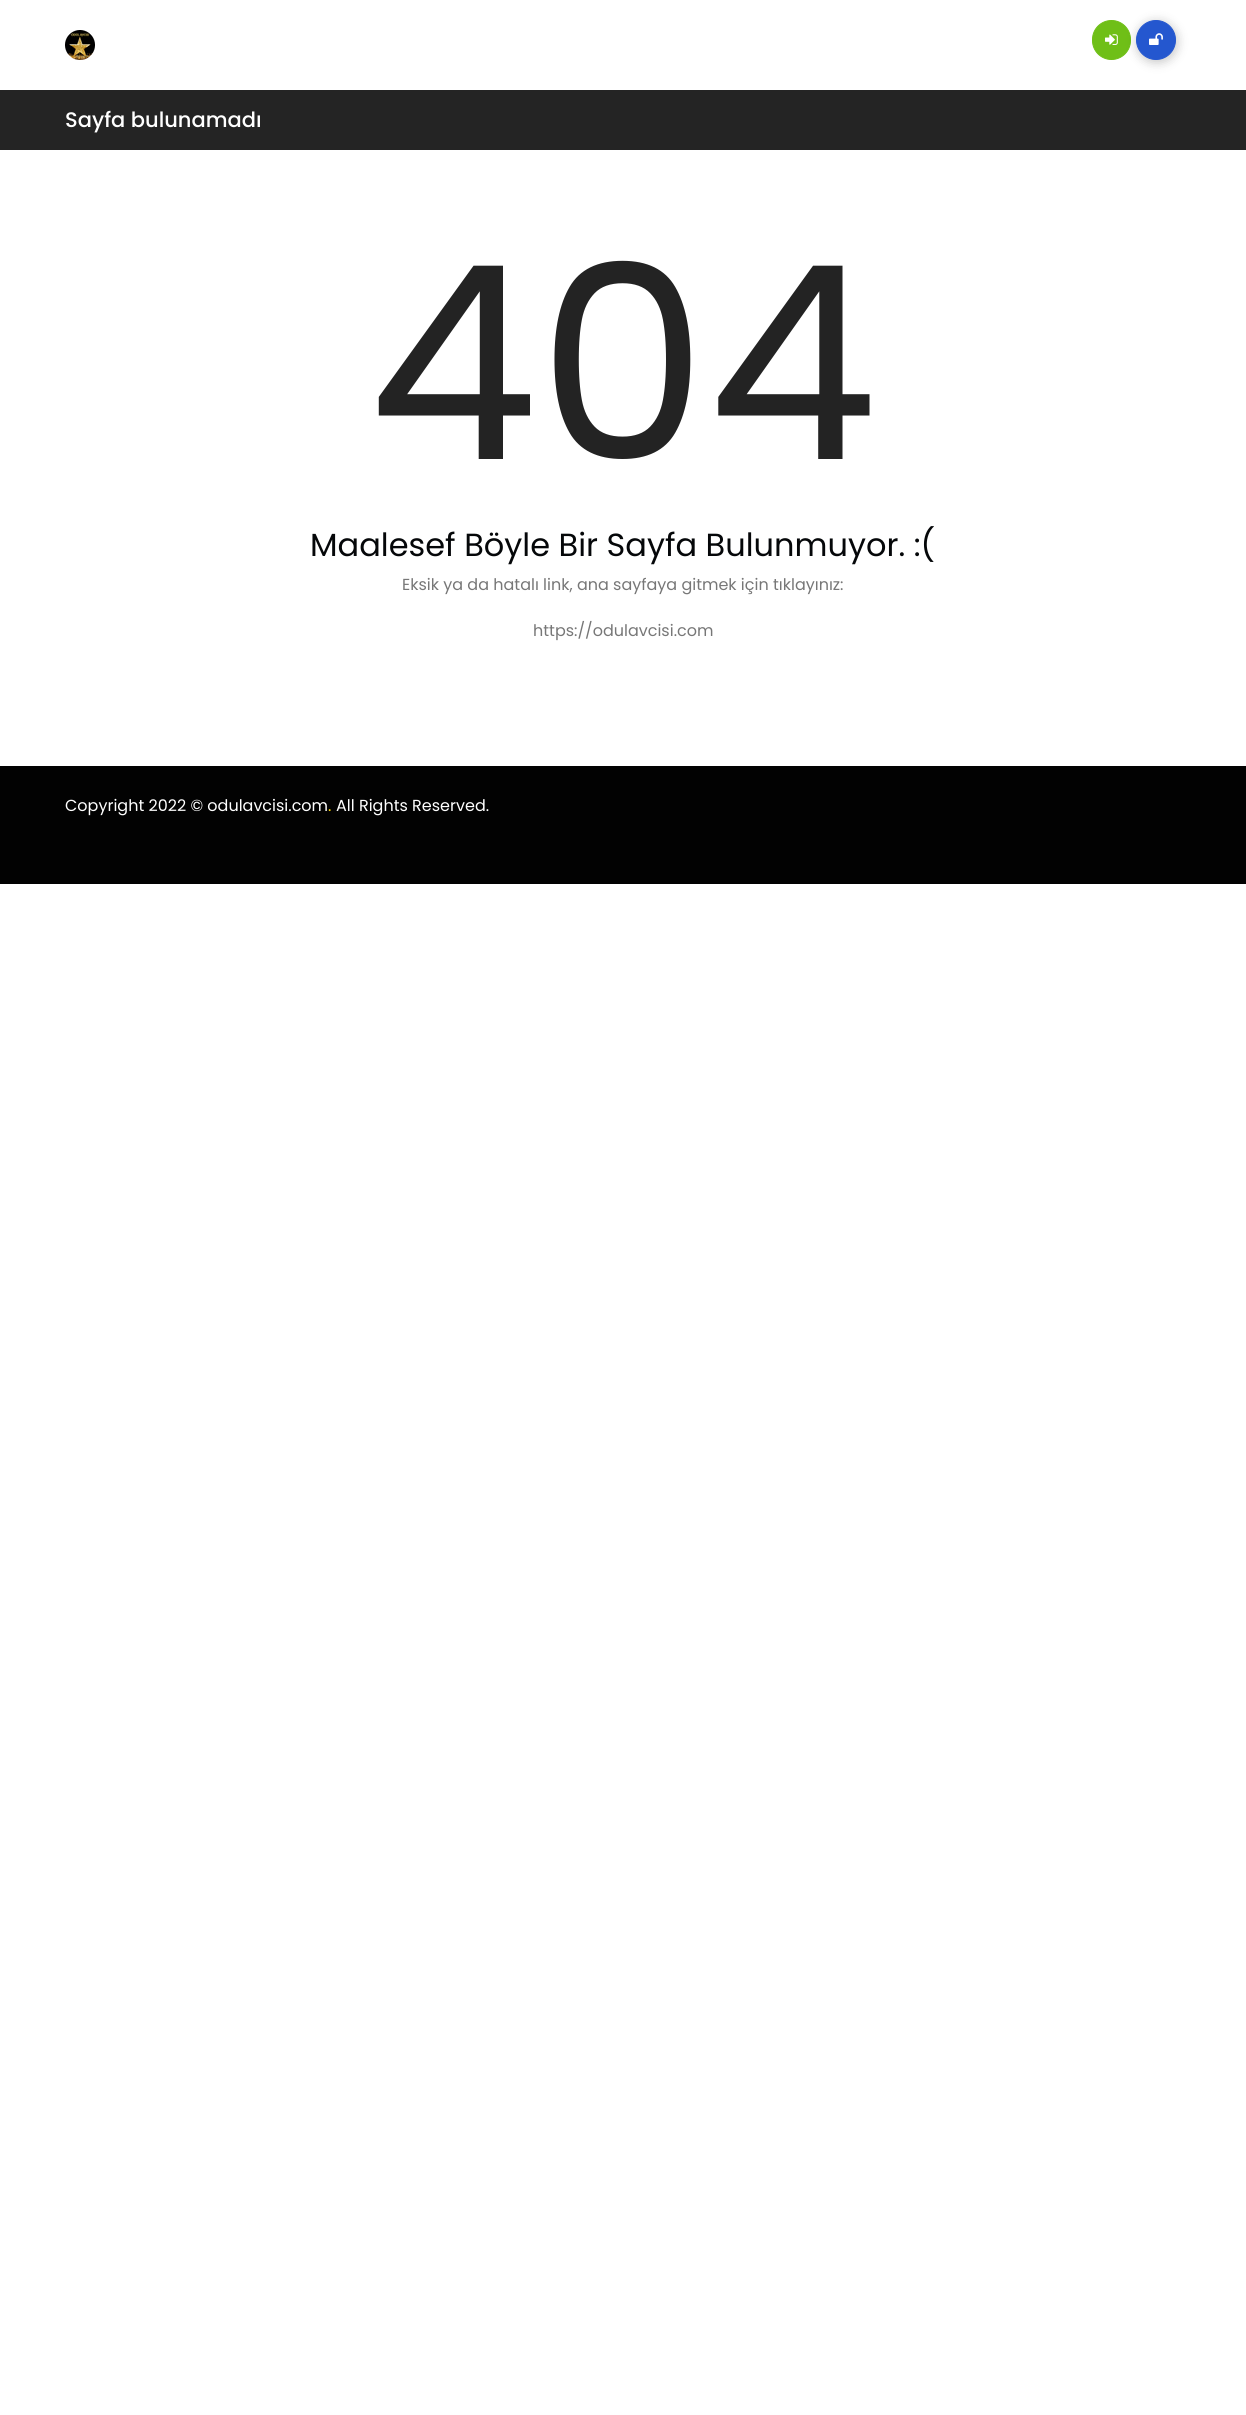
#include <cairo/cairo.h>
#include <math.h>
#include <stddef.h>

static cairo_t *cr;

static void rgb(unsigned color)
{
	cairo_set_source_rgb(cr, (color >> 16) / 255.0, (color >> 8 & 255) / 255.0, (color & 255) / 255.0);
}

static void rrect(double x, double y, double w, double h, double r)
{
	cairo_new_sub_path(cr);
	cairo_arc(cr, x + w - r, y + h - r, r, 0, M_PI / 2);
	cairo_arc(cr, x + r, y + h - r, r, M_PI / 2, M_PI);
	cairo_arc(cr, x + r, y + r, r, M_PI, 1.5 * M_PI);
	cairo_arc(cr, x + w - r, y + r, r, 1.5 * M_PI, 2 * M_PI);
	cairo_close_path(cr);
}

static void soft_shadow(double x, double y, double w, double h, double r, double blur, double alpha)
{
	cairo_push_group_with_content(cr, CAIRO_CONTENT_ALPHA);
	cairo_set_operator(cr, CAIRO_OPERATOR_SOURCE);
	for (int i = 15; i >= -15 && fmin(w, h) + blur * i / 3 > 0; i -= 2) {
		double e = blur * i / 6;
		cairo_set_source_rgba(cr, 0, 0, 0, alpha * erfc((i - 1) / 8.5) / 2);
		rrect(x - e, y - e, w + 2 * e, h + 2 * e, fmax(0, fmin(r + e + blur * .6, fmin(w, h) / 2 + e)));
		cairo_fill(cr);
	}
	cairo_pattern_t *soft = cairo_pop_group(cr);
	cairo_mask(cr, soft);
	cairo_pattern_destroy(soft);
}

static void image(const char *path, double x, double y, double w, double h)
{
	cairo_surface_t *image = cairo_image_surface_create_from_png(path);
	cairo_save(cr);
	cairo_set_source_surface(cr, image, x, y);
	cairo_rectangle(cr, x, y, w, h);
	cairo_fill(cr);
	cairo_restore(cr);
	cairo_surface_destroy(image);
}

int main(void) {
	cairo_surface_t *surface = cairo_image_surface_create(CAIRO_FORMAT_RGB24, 1246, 2415);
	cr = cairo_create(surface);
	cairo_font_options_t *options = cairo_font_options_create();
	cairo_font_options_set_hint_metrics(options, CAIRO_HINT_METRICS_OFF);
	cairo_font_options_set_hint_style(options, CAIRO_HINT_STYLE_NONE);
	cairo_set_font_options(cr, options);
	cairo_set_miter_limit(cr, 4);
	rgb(0xffffff);
	cairo_paint(cr);
	image("img/1.png", 65, 30, 30, 30);
	rgb(0x6fbf17);
	rrect(1092.5, 20.5, 38, 39, 19);
	cairo_fill_preserve(cr);
	cairo_set_line_width(cr, 1);
	cairo_stroke(cr);
	image("img/2.png", 1105, 34, 13, 11);
	rgb(0x000000);
	soft_shadow(1136, 21, 42, 42, 21, 5, 0.2);
	rgb(0x2457cf);
	cairo_arc(cr, 1156, 40, 19.5, 0, 2 * M_PI);
	cairo_fill_preserve(cr);
	cairo_stroke(cr);
	image("img/3.png", 1149, 33, 14, 12);
	rgb(0x242424);
	cairo_rectangle(cr, 0, 90, 1246, 60);
	cairo_fill(cr);
	rgb(0x020202);
	cairo_rectangle(cr, 0, 766, 1246, 118);
	cairo_fill(cr);
	cairo_select_font_face(cr, "Poppins Medium", CAIRO_FONT_SLANT_NORMAL, CAIRO_FONT_WEIGHT_NORMAL);
	cairo_set_font_size(cr, 21);
	rgb(0xffffff);
	cairo_move_to(cr, 65, 127);
	cairo_show_text(cr, "Sayfa bulunamadı");
	cairo_select_font_face(cr, "Poppins", CAIRO_FONT_SLANT_NORMAL, CAIRO_FONT_WEIGHT_NORMAL);
	cairo_set_font_size(cr, 270);
	rgb(0x232323);
	cairo_move_to(cr, 368, 459);
	cairo_show_text(cr, "404");
	cairo_set_font_size(cr, 32);
	rgb(0x050709);
	cairo_move_to(cr, 310, 556);
	cairo_show_text(cr, "Maalesef Böyle Bir Sayfa Bulunmuyor. :(");
	cairo_set_font_size(cr, 16);
	rgb(0x777777);
	cairo_move_to(cr, 402, 590);
	cairo_show_text(cr, "Eksik ya da hatalı link, ana sayfaya gitmek için tıklayınız:");
	cairo_move_to(cr, 533, 636);
	cairo_show_text(cr, "https://odulavcisi.com");
	rgb(0xffffff);
	cairo_move_to(cr, 65, 811);
	cairo_show_text(cr, "Copyright 2022 © odulavcisi.com");
	rgb(0xffd700);
	cairo_move_to(cr, 328, 811);
	cairo_show_text(cr, ".");
	rgb(0xffffff);
	cairo_move_to(cr, 336, 811);
	cairo_show_text(cr, "All Rights Reserved.");
	cairo_surface_write_to_png(surface, "page.png");
	cairo_font_options_destroy(options);
	cairo_destroy(cr);
	cairo_surface_destroy(surface);
	return 0;
}
